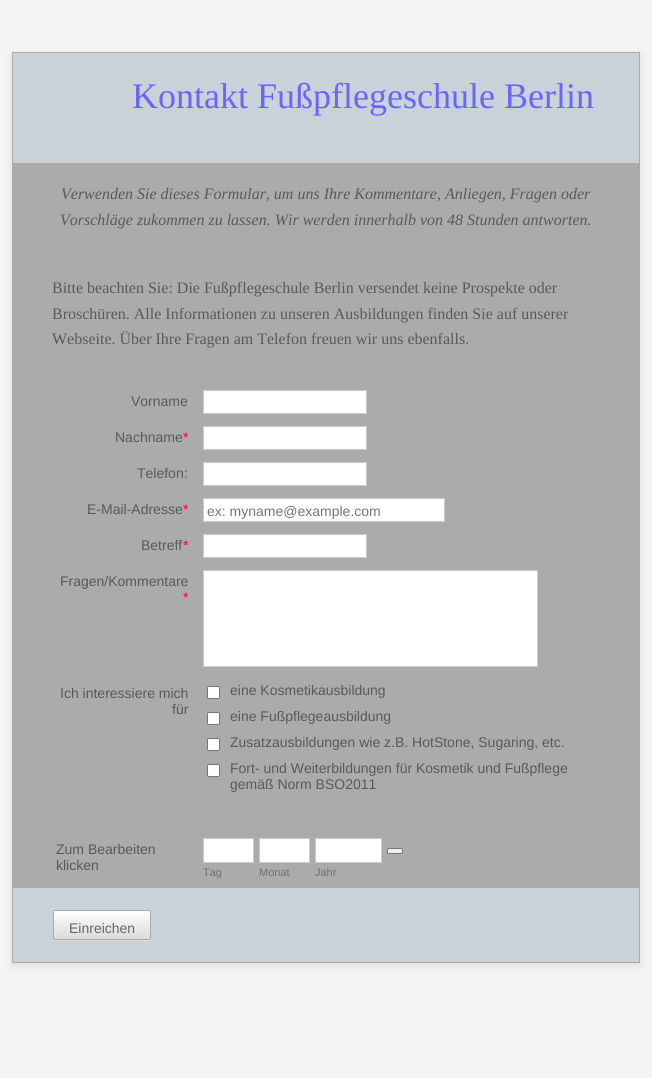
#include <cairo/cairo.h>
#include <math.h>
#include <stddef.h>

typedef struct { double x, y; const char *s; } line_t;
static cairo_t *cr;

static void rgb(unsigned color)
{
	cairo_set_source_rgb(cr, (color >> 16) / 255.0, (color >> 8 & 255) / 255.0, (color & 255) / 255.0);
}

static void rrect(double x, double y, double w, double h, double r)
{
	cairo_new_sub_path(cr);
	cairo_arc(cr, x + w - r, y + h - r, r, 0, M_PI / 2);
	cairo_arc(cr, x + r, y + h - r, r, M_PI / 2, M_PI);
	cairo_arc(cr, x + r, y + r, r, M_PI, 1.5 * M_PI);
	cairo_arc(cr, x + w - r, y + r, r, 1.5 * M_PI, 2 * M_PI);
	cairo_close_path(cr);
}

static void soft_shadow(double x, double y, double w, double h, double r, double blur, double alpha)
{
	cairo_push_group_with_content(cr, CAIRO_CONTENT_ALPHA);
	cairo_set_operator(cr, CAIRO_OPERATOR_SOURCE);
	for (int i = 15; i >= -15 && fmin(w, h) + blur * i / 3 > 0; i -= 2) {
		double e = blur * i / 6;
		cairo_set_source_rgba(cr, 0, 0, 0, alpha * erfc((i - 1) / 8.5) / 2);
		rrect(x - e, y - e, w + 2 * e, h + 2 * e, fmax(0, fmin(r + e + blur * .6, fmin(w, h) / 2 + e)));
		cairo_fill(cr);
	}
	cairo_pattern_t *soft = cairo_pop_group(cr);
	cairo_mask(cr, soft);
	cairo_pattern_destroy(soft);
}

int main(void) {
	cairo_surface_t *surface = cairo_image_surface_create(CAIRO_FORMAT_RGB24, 652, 1078);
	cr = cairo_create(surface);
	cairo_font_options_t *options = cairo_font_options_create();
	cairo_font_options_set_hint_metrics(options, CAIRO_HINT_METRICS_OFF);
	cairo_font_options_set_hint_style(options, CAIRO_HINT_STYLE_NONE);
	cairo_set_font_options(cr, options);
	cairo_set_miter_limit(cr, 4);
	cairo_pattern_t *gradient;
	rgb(0xf5f5f5);
	cairo_paint(cr);
	rgb(0x000000);
	soft_shadow(12, 55, 628, 911, 0, 4.5, 0.1);
	rgb(0xababab);
	cairo_rectangle(cr, 12, 52, 628, 911);
	cairo_fill(cr);
	rgb(0xcad2d9);
	cairo_rectangle(cr, 13, 53, 626, 110);
	cairo_fill(cr);
	rgb(0xffffff);
	cairo_rectangle(cr, 203.5, 390.5, 163, 23);
	cairo_fill_preserve(cr);
	rgb(0xcccccc);
	cairo_set_line_width(cr, 1);
	cairo_stroke(cr);
	rgb(0xffffff);
	cairo_rectangle(cr, 203.5, 426.5, 163, 23);
	cairo_fill_preserve(cr);
	rgb(0xcccccc);
	cairo_stroke(cr);
	rgb(0xffffff);
	cairo_rectangle(cr, 203.5, 462.5, 163, 23);
	cairo_fill_preserve(cr);
	rgb(0xcccccc);
	cairo_stroke(cr);
	rgb(0xffffff);
	cairo_rectangle(cr, 203.5, 498.5, 241, 23);
	cairo_fill_preserve(cr);
	rgb(0xcccccc);
	cairo_stroke(cr);
	rgb(0xffffff);
	cairo_rectangle(cr, 203.5, 534.5, 163, 23);
	cairo_fill_preserve(cr);
	rgb(0xcccccc);
	cairo_stroke(cr);
	rgb(0xffffff);
	cairo_rectangle(cr, 203.5, 570.5, 334, 96);
	cairo_fill_preserve(cr);
	rgb(0xcccccc);
	cairo_stroke(cr);
	rgb(0xffffff);
	rrect(207.5, 686.5, 12, 12, 1.5);
	cairo_fill_preserve(cr);
	rgb(0x767676);
	cairo_stroke(cr);
	rgb(0xffffff);
	rrect(207.5, 712.5, 12, 12, 1.5);
	cairo_fill_preserve(cr);
	rgb(0x767676);
	cairo_stroke(cr);
	rgb(0xffffff);
	rrect(207.5, 738.5, 12, 12, 1.5);
	cairo_fill_preserve(cr);
	rgb(0x767676);
	cairo_stroke(cr);
	rgb(0xffffff);
	rrect(207.5, 764.5, 12, 12, 1.5);
	cairo_fill_preserve(cr);
	rgb(0x767676);
	cairo_stroke(cr);
	rgb(0xefefef);
	rrect(387.5, 848.5, 15, 5, 1.5);
	cairo_fill_preserve(cr);
	rgb(0x767676);
	cairo_stroke(cr);
	rgb(0xffffff);
	cairo_rectangle(cr, 203.5, 838.5, 50, 24);
	cairo_fill_preserve(cr);
	rgb(0xcccccc);
	cairo_stroke(cr);
	rgb(0xffffff);
	cairo_rectangle(cr, 259.5, 838.5, 50, 24);
	cairo_fill_preserve(cr);
	rgb(0xcccccc);
	cairo_stroke(cr);
	rgb(0xffffff);
	cairo_rectangle(cr, 315.5, 838.5, 66, 24);
	cairo_fill_preserve(cr);
	rgb(0xcccccc);
	cairo_stroke(cr);
	rgb(0xcad2d9);
	cairo_rectangle(cr, 13, 888, 626, 74);
	cairo_fill(cr);
	rgb(0xdddddd);
	soft_shadow(53, 911, 98, 30, 2, 0.5, 1);
	cairo_save(cr);
	rrect(53, 910, 98, 30, 2);
	cairo_clip(cr);
	gradient = cairo_pattern_create_linear(102, 911, 102, 939);
	cairo_pattern_add_color_stop_rgba(gradient, 0, 0.996, 0.996, 0.996, 1);
	cairo_pattern_add_color_stop_rgba(gradient, 1, 0.859, 0.859, 0.859, 1);
	cairo_set_source(cr, gradient);
	cairo_pattern_destroy(gradient);
	cairo_rectangle(cr, 53, 911, 98, 28);
	cairo_fill(cr);
	cairo_restore(cr);
	rrect(53.5, 910.5, 97, 29, 1.5);
	rgb(0xa7a7a7);
	cairo_stroke(cr);
	cairo_select_font_face(cr, "Liberation Serif", CAIRO_FONT_SLANT_NORMAL, CAIRO_FONT_WEIGHT_NORMAL);
	cairo_set_font_size(cr, 36);
	rgb(0x6666ff);
	cairo_move_to(cr, 132, 108);
	cairo_show_text(cr, "Kontakt Fußpflegeschule Berlin");
	cairo_select_font_face(cr, "Liberation Serif", CAIRO_FONT_SLANT_ITALIC, CAIRO_FONT_WEIGHT_NORMAL);
	cairo_set_font_size(cr, 16);
	rgb(0x595959);
	cairo_move_to(cr, 61, 199);
	cairo_show_text(cr, "Verwenden Sie dieses Formular, um uns Ihre Kommentare, Anliegen, Fragen oder");
	cairo_move_to(cr, 60, 225);
	cairo_show_text(cr, "Vorschläge zukommen zu lassen. Wir werden innerhalb von 48 Stunden antworten.");
	cairo_select_font_face(cr, "Liberation Serif", CAIRO_FONT_SLANT_NORMAL, CAIRO_FONT_WEIGHT_NORMAL);
	{
		static const line_t items[] = {
			{52, 293, "Bitte beachten Sie: Die Fußpflegeschule Berlin versendet keine Prospekte oder"},
			{52, 319, "Broschüren. Alle Informationen zu unseren Ausbildungen finden Sie auf unserer"},
			{52, 344, "Webseite. Über Ihre Fragen am Telefon freuen wir uns ebenfalls."},
		};
		for (size_t i = 0; i < sizeof items / sizeof *items; i++) {
			cairo_move_to(cr, items[i].x, items[i].y);
			cairo_show_text(cr, items[i].s);
		}
	}
	cairo_select_font_face(cr, "Liberation Sans", CAIRO_FONT_SLANT_NORMAL, CAIRO_FONT_WEIGHT_NORMAL);
	cairo_set_font_size(cr, 14);
	cairo_move_to(cr, 131, 406);
	cairo_show_text(cr, "Vorname");
	cairo_move_to(cr, 115, 442);
	cairo_show_text(cr, "Nachname");
	rgb(0xff0000);
	cairo_move_to(cr, 183, 442);
	cairo_show_text(cr, "*");
	rgb(0x595959);
	cairo_move_to(cr, 137, 478);
	cairo_show_text(cr, "Telefon:");
	cairo_move_to(cr, 87, 514);
	cairo_show_text(cr, "E-Mail-Adresse");
	rgb(0xff0000);
	cairo_move_to(cr, 183, 514);
	cairo_show_text(cr, "*");
	rgb(0x757575);
	cairo_move_to(cr, 207, 516);
	cairo_show_text(cr, "ex: myname@example.com");
	rgb(0x595959);
	cairo_move_to(cr, 141, 550);
	cairo_show_text(cr, "Betreff");
	rgb(0xff0000);
	cairo_move_to(cr, 183, 550);
	cairo_show_text(cr, "*");
	rgb(0x595959);
	cairo_move_to(cr, 60, 586);
	cairo_show_text(cr, "Fragen/Kommentare");
	rgb(0xff0000);
	cairo_move_to(cr, 183, 602);
	cairo_show_text(cr, "*");
	rgb(0x595959);
	{
		static const line_t items[] = {
			{60, 698, "Ich interessiere mich"},
			{172, 714, "für"},
			{230, 695, "eine Kosmetikausbildung"},
			{230, 721, "eine Fußpflegeausbildung"},
			{230, 747, "Zusatzausbildungen wie z.B. HotStone, Sugaring, etc."},
			{230, 773, "Fort- und Weiterbildungen für Kosmetik und Fußpflege"},
			{230, 789, "gemäß Norm BSO2011"},
			{56, 854, "Zum Bearbeiten"},
			{56, 870, "klicken"},
		};
		for (size_t i = 0; i < sizeof items / sizeof *items; i++) {
			cairo_move_to(cr, items[i].x, items[i].y);
			cairo_show_text(cr, items[i].s);
		}
	}
	cairo_set_font_size(cr, 11);
	rgb(0x6f6f6f);
	{
		static const line_t items[] = {
			{203, 876, "Tag"},
			{259, 876, "Monat"},
			{315, 876, "Jahr"},
		};
		for (size_t i = 0; i < sizeof items / sizeof *items; i++) {
			cairo_move_to(cr, items[i].x, items[i].y);
			cairo_show_text(cr, items[i].s);
		}
	}
	cairo_set_font_size(cr, 14);
	rgb(0x666666);
	cairo_move_to(cr, 69, 933);
	cairo_show_text(cr, "Einreichen");
	cairo_surface_write_to_png(surface, "page.png");
	cairo_font_options_destroy(options);
	cairo_destroy(cr);
	cairo_surface_destroy(surface);
	return 0;
}
